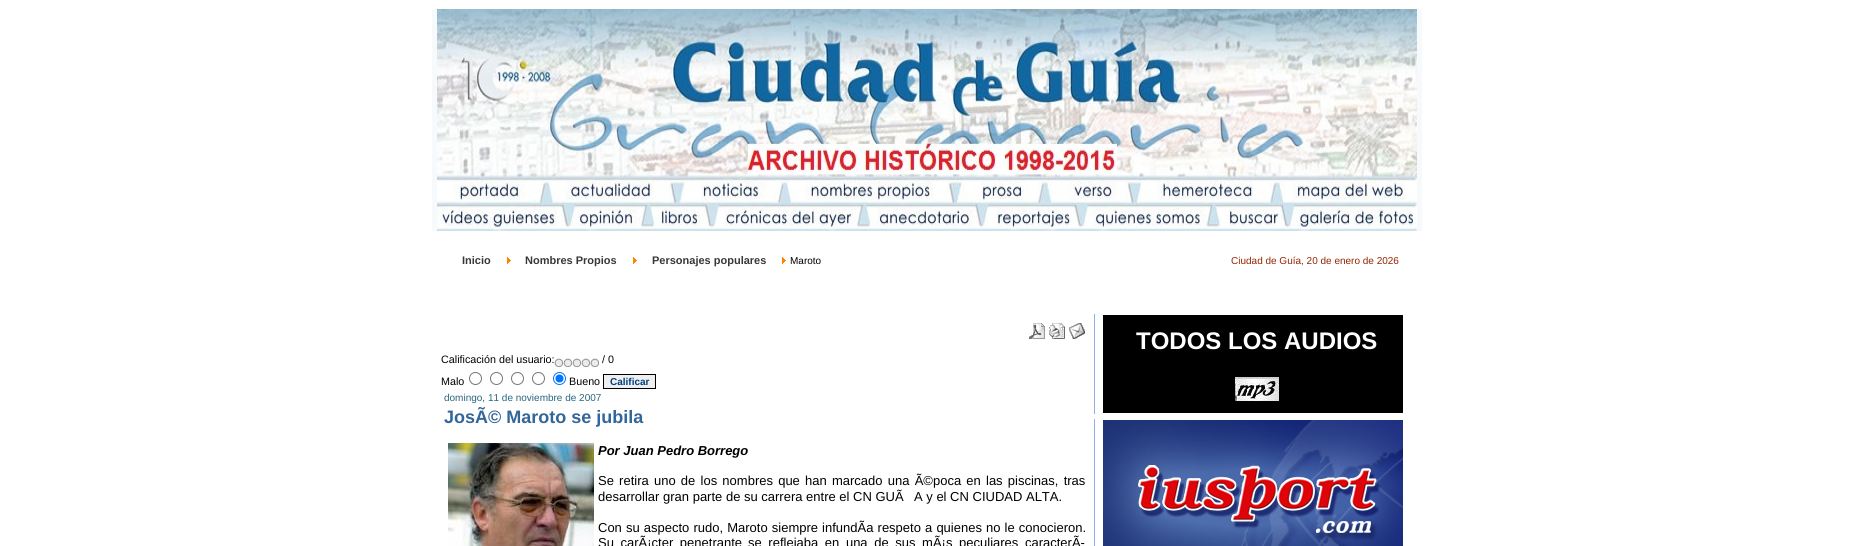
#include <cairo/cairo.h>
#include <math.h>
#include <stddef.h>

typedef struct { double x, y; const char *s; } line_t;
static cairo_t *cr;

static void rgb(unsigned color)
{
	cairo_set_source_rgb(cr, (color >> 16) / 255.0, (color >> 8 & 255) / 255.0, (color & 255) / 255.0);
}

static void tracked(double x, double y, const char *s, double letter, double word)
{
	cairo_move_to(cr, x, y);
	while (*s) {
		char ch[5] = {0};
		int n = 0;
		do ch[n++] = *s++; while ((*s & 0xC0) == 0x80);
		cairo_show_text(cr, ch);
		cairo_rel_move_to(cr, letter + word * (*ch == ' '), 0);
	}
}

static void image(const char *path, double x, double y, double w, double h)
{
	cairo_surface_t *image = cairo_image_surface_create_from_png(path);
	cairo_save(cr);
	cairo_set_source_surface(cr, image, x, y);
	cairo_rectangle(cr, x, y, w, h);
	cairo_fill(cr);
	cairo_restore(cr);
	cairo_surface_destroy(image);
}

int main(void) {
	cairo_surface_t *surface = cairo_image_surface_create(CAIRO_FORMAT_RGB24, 1854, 546);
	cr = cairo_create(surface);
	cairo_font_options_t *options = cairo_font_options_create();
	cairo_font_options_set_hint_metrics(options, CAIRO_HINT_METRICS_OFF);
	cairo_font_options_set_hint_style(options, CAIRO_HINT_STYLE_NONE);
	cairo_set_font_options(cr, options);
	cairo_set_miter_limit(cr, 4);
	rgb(0xffffff);
	cairo_paint(cr);
	rgb(0xf7fafd);
	cairo_rectangle(cr, 432, 9, 990, 222);
	cairo_fill(cr);
	image("img/1.png", 437, 9, 980, 222);
	image("img/2.png", 507, 257, 4, 7);
	image("img/2.png", 633, 257, 4, 7);
	image("img/2.png", 782, 257, 4, 7);
	rgb(0x8db1e5);
	cairo_rectangle(cr, 1094, 314, 1, 100);
	cairo_fill(cr);
	rgb(0x000000);
	cairo_rectangle(cr, 1103, 315, 300, 98);
	cairo_fill(cr);
	image("img/3.png", 1235, 377, 44, 24);
	rgb(0x8db1e5);
	cairo_rectangle(cr, 1094, 419, 1, 127);
	cairo_fill(cr);
	image("img/4.png", 1103, 420, 300, 126);
	image("img/5.png", 1029, 323, 16, 16);
	image("img/6.png", 1049, 323, 16, 16);
	image("img/7.png", 1069, 323, 16, 16);
	image("img/8.png", 554, 358, 9, 10);
	image("img/8.png", 563, 358, 9, 10);
	image("img/8.png", 572, 358, 9, 10);
	image("img/8.png", 581, 358, 9, 10);
	image("img/8.png", 590, 358, 9, 10);
	cairo_arc(cr, 475.5, 378.5, 6, 0, 2 * M_PI);
	rgb(0x767676);
	cairo_set_line_width(cr, 1);
	cairo_stroke(cr);
	cairo_arc(cr, 496.5, 378.5, 6, 0, 2 * M_PI);
	cairo_stroke(cr);
	cairo_arc(cr, 517.5, 378.5, 6, 0, 2 * M_PI);
	cairo_stroke(cr);
	cairo_arc(cr, 538.5, 378.5, 6, 0, 2 * M_PI);
	cairo_stroke(cr);
	cairo_arc(cr, 559.5, 378.5, 6, 0, 2 * M_PI);
	rgb(0x0075ff);
	cairo_stroke(cr);
	cairo_arc(cr, 559.5, 378.5, 4, 0, 2 * M_PI);
	cairo_fill(cr);
	rgb(0xefefef);
	cairo_rectangle(cr, 603.5, 374.5, 52, 14);
	cairo_fill_preserve(cr);
	rgb(0x000000);
	cairo_stroke(cr);
	image("img/9.png", 448, 443, 146, 103);
	cairo_select_font_face(cr, "Liberation Sans", CAIRO_FONT_SLANT_NORMAL, CAIRO_FONT_WEIGHT_BOLD);
	cairo_set_font_size(cr, 11);
	rgb(0x383838);
	{
		static const line_t items[] = {
			{462, 264, "Inicio"},
			{525, 264, "Nombres Propios"},
			{652, 264, "Personajes populares"},
		};
		for (size_t i = 0; i < sizeof items / sizeof *items; i++) {
			cairo_move_to(cr, items[i].x, items[i].y);
			cairo_show_text(cr, items[i].s);
		}
	}
	cairo_select_font_face(cr, "Liberation Sans", CAIRO_FONT_SLANT_NORMAL, CAIRO_FONT_WEIGHT_NORMAL);
	cairo_set_font_size(cr, 10);
	rgb(0x000000);
	cairo_move_to(cr, 790, 264);
	cairo_show_text(cr, "Maroto");
	rgb(0x952500);
	cairo_move_to(cr, 1231, 264);
	cairo_show_text(cr, "Ciudad de Guía, 20 de enero de 2026");
	cairo_select_font_face(cr, "Liberation Sans", CAIRO_FONT_SLANT_NORMAL, CAIRO_FONT_WEIGHT_BOLD);
	cairo_set_font_size(cr, 24);
	rgb(0xffffff);
	cairo_move_to(cr, 1136, 349);
	cairo_show_text(cr, "TODOS LOS AUDIOS");
	cairo_select_font_face(cr, "Liberation Sans", CAIRO_FONT_SLANT_NORMAL, CAIRO_FONT_WEIGHT_NORMAL);
	cairo_set_font_size(cr, 10.75);
	rgb(0x000000);
	{
		static const line_t items[] = {
			{441, 363, "Calificación del usuario:"},
			{602, 363, "/ 0"},
			{441, 385, "Malo"},
			{569, 385, "Bueno"},
		};
		for (size_t i = 0; i < sizeof items / sizeof *items; i++) {
			cairo_move_to(cr, items[i].x, items[i].y);
			cairo_show_text(cr, items[i].s);
		}
	}
	cairo_select_font_face(cr, "Liberation Sans", CAIRO_FONT_SLANT_NORMAL, CAIRO_FONT_WEIGHT_BOLD);
	cairo_set_font_size(cr, 10);
	rgb(0x004080);
	cairo_move_to(cr, 610, 385);
	cairo_show_text(cr, "Calificar");
	cairo_select_font_face(cr, "Liberation Sans", CAIRO_FONT_SLANT_NORMAL, CAIRO_FONT_WEIGHT_NORMAL);
	rgb(0x28657f);
	cairo_move_to(cr, 444, 401);
	cairo_show_text(cr, "domingo, 11 de noviembre de 2007");
	cairo_select_font_face(cr, "Liberation Sans", CAIRO_FONT_SLANT_NORMAL, CAIRO_FONT_WEIGHT_BOLD);
	cairo_set_font_size(cr, 18);
	rgb(0x336699);
	cairo_move_to(cr, 444, 423);
	cairo_show_text(cr, "JosÃ© Maroto se jubila");
	cairo_select_font_face(cr, "Liberation Sans", CAIRO_FONT_SLANT_ITALIC, CAIRO_FONT_WEIGHT_BOLD);
	cairo_set_font_size(cr, 13);
	rgb(0x000000);
	cairo_move_to(cr, 598, 455);
	cairo_show_text(cr, "Por Juan Pedro Borrego");
	cairo_select_font_face(cr, "Liberation Sans", CAIRO_FONT_SLANT_NORMAL, CAIRO_FONT_WEIGHT_NORMAL);
	tracked(598, 485, "Se retira uno de los nombres que han marcado una Ã©poca en las piscinas, tras", 0, 1.6);
	cairo_move_to(cr, 598, 501);
	cairo_show_text(cr, "desarrollar gran parte de su carrera entre el CN GUÃ");
	cairo_move_to(cr, 914, 501);
	cairo_show_text(cr, "A y el CN CIUDAD ALTA.");
	tracked(598, 532, "Con su aspecto rudo, Maroto siempre infundÃa respeto a quienes no le conocieron.", 0, 0.5);
	tracked(598, 547, "Su carÃ¡cter penetrante", 0, 3);
	tracked(748, 547, "se reflejaba en una de sus mÃ¡s peculiares caracterÃ-", 0, 3);
	cairo_surface_write_to_png(surface, "page.png");
	cairo_font_options_destroy(options);
	cairo_destroy(cr);
	cairo_surface_destroy(surface);
	return 0;
}
